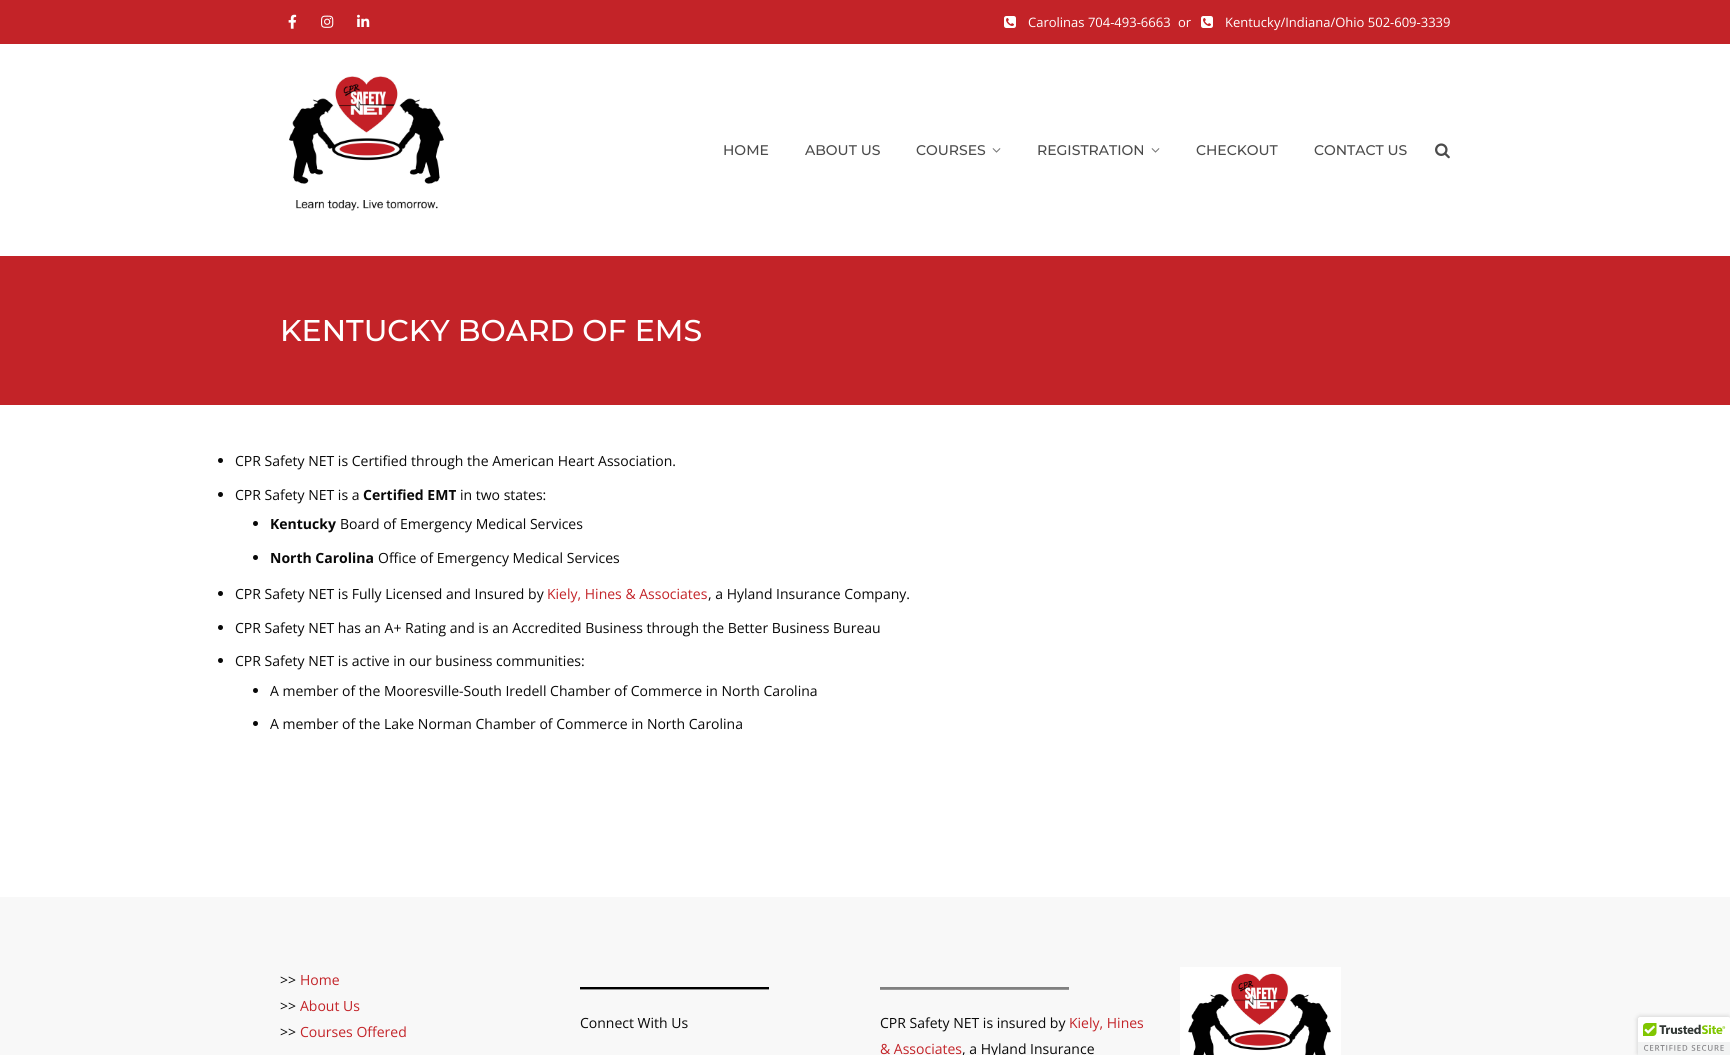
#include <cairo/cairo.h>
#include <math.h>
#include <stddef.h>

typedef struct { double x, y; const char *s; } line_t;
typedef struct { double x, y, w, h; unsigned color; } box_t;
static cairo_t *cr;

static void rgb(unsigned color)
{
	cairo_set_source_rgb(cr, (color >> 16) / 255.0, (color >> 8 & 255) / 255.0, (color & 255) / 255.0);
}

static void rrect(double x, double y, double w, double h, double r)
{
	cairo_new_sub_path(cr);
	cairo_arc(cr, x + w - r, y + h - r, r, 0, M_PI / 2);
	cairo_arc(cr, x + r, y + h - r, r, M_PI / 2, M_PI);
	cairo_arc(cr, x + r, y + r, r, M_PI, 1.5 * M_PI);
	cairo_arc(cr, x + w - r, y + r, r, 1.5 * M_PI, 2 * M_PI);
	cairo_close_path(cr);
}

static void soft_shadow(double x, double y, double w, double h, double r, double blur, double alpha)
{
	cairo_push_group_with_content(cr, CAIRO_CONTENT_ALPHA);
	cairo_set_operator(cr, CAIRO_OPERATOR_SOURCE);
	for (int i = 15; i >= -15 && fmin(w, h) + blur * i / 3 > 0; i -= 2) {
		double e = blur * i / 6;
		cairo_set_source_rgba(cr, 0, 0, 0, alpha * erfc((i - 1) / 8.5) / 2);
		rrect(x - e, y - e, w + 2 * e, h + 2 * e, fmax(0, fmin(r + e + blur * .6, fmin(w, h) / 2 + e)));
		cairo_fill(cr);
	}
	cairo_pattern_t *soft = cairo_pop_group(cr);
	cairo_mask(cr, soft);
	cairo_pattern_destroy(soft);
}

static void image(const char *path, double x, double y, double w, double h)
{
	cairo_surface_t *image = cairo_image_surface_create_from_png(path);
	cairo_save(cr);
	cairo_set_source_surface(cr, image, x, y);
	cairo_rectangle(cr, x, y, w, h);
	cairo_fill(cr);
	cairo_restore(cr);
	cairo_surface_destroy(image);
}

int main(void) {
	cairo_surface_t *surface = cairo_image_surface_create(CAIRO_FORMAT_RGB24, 1730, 1055);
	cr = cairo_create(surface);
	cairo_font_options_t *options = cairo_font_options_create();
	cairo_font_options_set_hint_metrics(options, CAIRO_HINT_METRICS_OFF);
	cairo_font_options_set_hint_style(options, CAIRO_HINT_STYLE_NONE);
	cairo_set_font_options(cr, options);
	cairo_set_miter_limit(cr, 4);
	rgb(0xffffff);
	cairo_paint(cr);
	rgb(0xc32328);
	cairo_rectangle(cr, 0, 0, 1730, 44);
	cairo_fill(cr);
	image("img/1.png", 288, 14, 9, 15);
	image("img/2.png", 321, 15, 13, 13);
	image("img/3.png", 357, 14, 13, 13);
	image("img/4.png", 1004, 16, 12, 12);
	image("img/4.png", 1201, 16, 12, 12);
	image("img/5.png", 289, 76, 155, 135);
	image("img/6.png", 992, 148, 9, 5);
	image("img/6.png", 1151, 148, 9, 5);
	image("img/7.png", 1435, 143, 15, 16);
	cairo_rectangle(cr, 0, 256, 1730, 149);
	cairo_fill(cr);
	rgb(0x080808);
	cairo_arc(cr, 220.5, 460.5, 2.5, 0, 2 * M_PI);
	cairo_fill(cr);
	cairo_arc(cr, 220.5, 494.5, 2.5, 0, 2 * M_PI);
	cairo_fill(cr);
	cairo_arc(cr, 255.5, 523.5, 2.5, 0, 2 * M_PI);
	cairo_fill(cr);
	cairo_arc(cr, 255.5, 557.5, 2.5, 0, 2 * M_PI);
	cairo_fill(cr);
	cairo_arc(cr, 220.5, 593.5, 2.5, 0, 2 * M_PI);
	cairo_fill(cr);
	cairo_arc(cr, 220.5, 627.5, 2.5, 0, 2 * M_PI);
	cairo_fill(cr);
	cairo_arc(cr, 220.5, 660.5, 2.5, 0, 2 * M_PI);
	cairo_fill(cr);
	cairo_arc(cr, 255.5, 690.5, 2.5, 0, 2 * M_PI);
	cairo_fill(cr);
	cairo_arc(cr, 255.5, 723.5, 2.5, 0, 2 * M_PI);
	cairo_fill(cr);
	{
		static const box_t items[] = {
			{0, 897, 1730, 158, 0xf8f8f8},
			{580, 989, 189, 1, 0x979797},
			{580, 987, 189, 2, 0x000000},
			{880, 989, 189, 1, 0x979797},
			{880, 987, 189, 2, 0x808080},
		};
		for (size_t i = 0; i < sizeof items / sizeof *items; i++) {
			rgb(items[i].color);
			cairo_rectangle(cr, items[i].x, items[i].y, items[i].w, items[i].h);
			cairo_fill(cr);
		}
	}
	image("img/8.png", 1180, 967, 161, 88);
	rgb(0x000000);
	soft_shadow(1638, 1017, 92, 38, 2, 2.5, 0.2);
	rgb(0xffffff);
	cairo_new_path(cr);
	cairo_move_to(cr, 1640, 1017);
	cairo_line_to(cr, 1730, 1017);
	cairo_line_to(cr, 1730, 1055);
	cairo_line_to(cr, 1638, 1055);
	cairo_line_to(cr, 1638, 1019);
	cairo_curve_to(cr, 1638, 1018, 1639, 1017, 1640, 1017);
	cairo_close_path(cr);
	cairo_fill(cr);
	image("img/9.png", 1638, 1017, 92, 38);
	cairo_select_font_face(cr, "Open Sans", CAIRO_FONT_SLANT_NORMAL, CAIRO_FONT_WEIGHT_NORMAL);
	cairo_set_font_size(cr, 13);
	{
		static const line_t items[] = {
			{1028, 27, "Carolinas 704-493-6663"},
			{1178, 27, "or"},
			{1225, 27, "Kentucky/Indiana/Ohio 502-609-3339"},
		};
		for (size_t i = 0; i < sizeof items / sizeof *items; i++) {
			cairo_move_to(cr, items[i].x, items[i].y);
			cairo_show_text(cr, items[i].s);
		}
	}
	cairo_select_font_face(cr, "Montserrat Medium", CAIRO_FONT_SLANT_NORMAL, CAIRO_FONT_WEIGHT_NORMAL);
	cairo_set_font_size(cr, 14);
	rgb(0x4b4b4b);
	{
		static const line_t items[] = {
			{723, 155, "HOME"},
			{805, 155, "ABOUT US"},
			{916, 155, "COURSES"},
			{1037, 155, "REGISTRATION"},
			{1196, 155, "CHECKOUT"},
			{1314, 155, "CONTACT US"},
		};
		for (size_t i = 0; i < sizeof items / sizeof *items; i++) {
			cairo_move_to(cr, items[i].x, items[i].y);
			cairo_show_text(cr, items[i].s);
		}
	}
	cairo_set_font_size(cr, 30);
	rgb(0xffffff);
	cairo_move_to(cr, 280, 341);
	cairo_show_text(cr, "KENTUCKY BOARD OF EMS");
	cairo_select_font_face(cr, "Open Sans", CAIRO_FONT_SLANT_NORMAL, CAIRO_FONT_WEIGHT_NORMAL);
	cairo_set_font_size(cr, 14);
	rgb(0x080808);
	cairo_move_to(cr, 235, 466);
	cairo_show_text(cr, "CPR Safety NET is Certified through the American Heart Association.");
	cairo_move_to(cr, 235, 500);
	cairo_show_text(cr, "CPR Safety NET is a");
	cairo_select_font_face(cr, "Open Sans", CAIRO_FONT_SLANT_NORMAL, CAIRO_FONT_WEIGHT_BOLD);
	cairo_move_to(cr, 363, 500);
	cairo_show_text(cr, "Certified EMT");
	cairo_select_font_face(cr, "Open Sans", CAIRO_FONT_SLANT_NORMAL, CAIRO_FONT_WEIGHT_NORMAL);
	cairo_move_to(cr, 460, 500);
	cairo_show_text(cr, "in two states:");
	cairo_select_font_face(cr, "Open Sans", CAIRO_FONT_SLANT_NORMAL, CAIRO_FONT_WEIGHT_BOLD);
	cairo_move_to(cr, 270, 529);
	cairo_show_text(cr, "Kentucky");
	cairo_select_font_face(cr, "Open Sans", CAIRO_FONT_SLANT_NORMAL, CAIRO_FONT_WEIGHT_NORMAL);
	cairo_move_to(cr, 340, 529);
	cairo_show_text(cr, "Board of Emergency Medical Services");
	cairo_select_font_face(cr, "Open Sans", CAIRO_FONT_SLANT_NORMAL, CAIRO_FONT_WEIGHT_BOLD);
	cairo_move_to(cr, 270, 563);
	cairo_show_text(cr, "North Carolina");
	cairo_select_font_face(cr, "Open Sans", CAIRO_FONT_SLANT_NORMAL, CAIRO_FONT_WEIGHT_NORMAL);
	cairo_move_to(cr, 378, 563);
	cairo_show_text(cr, "Office of Emergency Medical Services");
	cairo_move_to(cr, 235, 599);
	cairo_show_text(cr, "CPR Safety NET is Fully Licensed and Insured by");
	rgb(0xc32328);
	cairo_move_to(cr, 547, 599);
	cairo_show_text(cr, "Kiely, Hines & Associates");
	rgb(0x080808);
	{
		static const line_t items[] = {
			{708, 599, ", a Hyland Insurance Company."},
			{235, 633, "CPR Safety NET has an A+ Rating and is an Accredited Business through the Better Business Bureau"},
			{235, 666, "CPR Safety NET is active in our business communities:"},
			{270, 696, "A member of the Mooresville-South Iredell Chamber of Commerce in North Carolina"},
			{270, 729, "A member of the Lake Norman Chamber of Commerce in North Carolina"},
			{280, 985, ">>"},
		};
		for (size_t i = 0; i < sizeof items / sizeof *items; i++) {
			cairo_move_to(cr, items[i].x, items[i].y);
			cairo_show_text(cr, items[i].s);
		}
	}
	rgb(0xc32328);
	cairo_move_to(cr, 300, 985);
	cairo_show_text(cr, "Home");
	rgb(0x080808);
	cairo_move_to(cr, 280, 1011);
	cairo_show_text(cr, ">>");
	rgb(0xc32328);
	cairo_move_to(cr, 300, 1011);
	cairo_show_text(cr, "About Us");
	rgb(0x080808);
	cairo_move_to(cr, 280, 1037);
	cairo_show_text(cr, ">>");
	rgb(0xc32328);
	cairo_move_to(cr, 300, 1037);
	cairo_show_text(cr, "Courses Offered");
	rgb(0x080808);
	cairo_move_to(cr, 580, 1028);
	cairo_show_text(cr, "Connect With Us");
	cairo_move_to(cr, 880, 1028);
	cairo_show_text(cr, "CPR Safety NET is insured by");
	rgb(0xc32328);
	cairo_move_to(cr, 1069, 1028);
	cairo_show_text(cr, "Kiely, Hines");
	cairo_move_to(cr, 880, 1054);
	cairo_show_text(cr, "& Associates");
	rgb(0x080808);
	cairo_move_to(cr, 962, 1054);
	cairo_show_text(cr, ", a Hyland Insurance");
	cairo_surface_write_to_png(surface, "page.png");
	cairo_font_options_destroy(options);
	cairo_destroy(cr);
	cairo_surface_destroy(surface);
	return 0;
}
